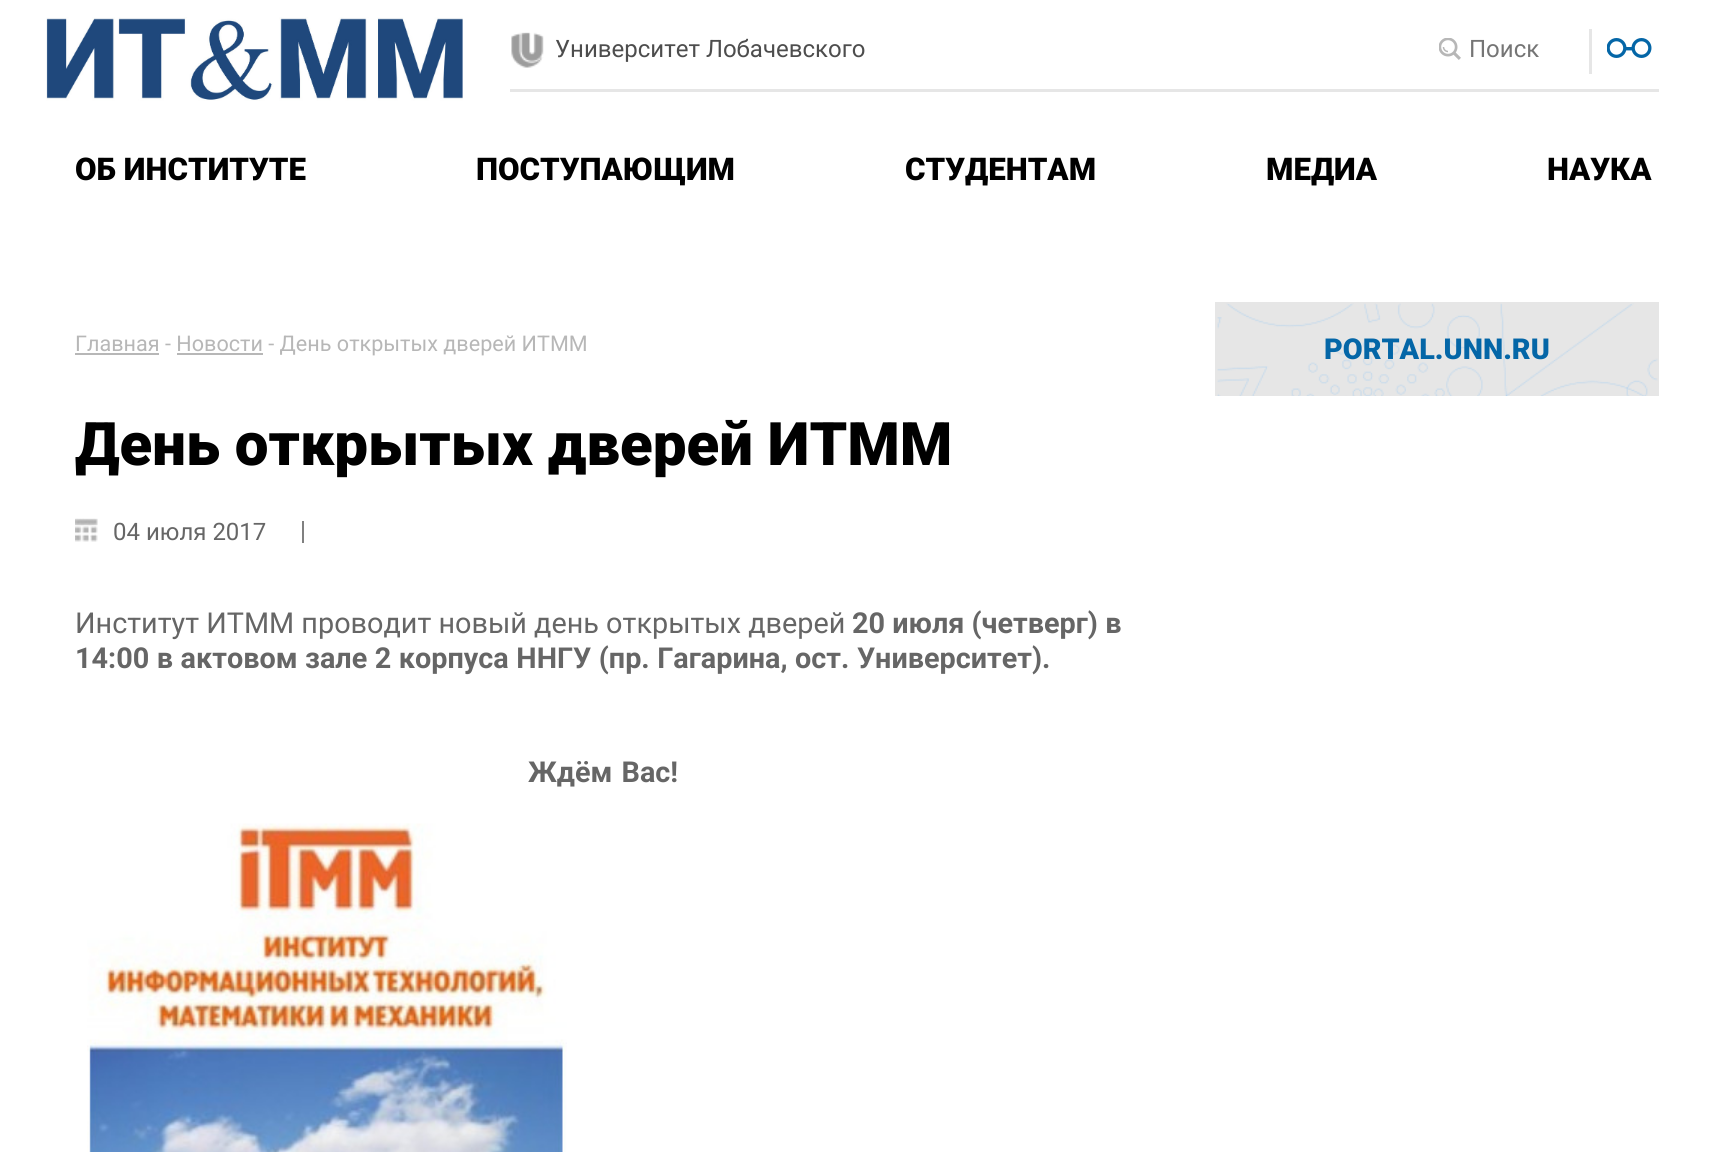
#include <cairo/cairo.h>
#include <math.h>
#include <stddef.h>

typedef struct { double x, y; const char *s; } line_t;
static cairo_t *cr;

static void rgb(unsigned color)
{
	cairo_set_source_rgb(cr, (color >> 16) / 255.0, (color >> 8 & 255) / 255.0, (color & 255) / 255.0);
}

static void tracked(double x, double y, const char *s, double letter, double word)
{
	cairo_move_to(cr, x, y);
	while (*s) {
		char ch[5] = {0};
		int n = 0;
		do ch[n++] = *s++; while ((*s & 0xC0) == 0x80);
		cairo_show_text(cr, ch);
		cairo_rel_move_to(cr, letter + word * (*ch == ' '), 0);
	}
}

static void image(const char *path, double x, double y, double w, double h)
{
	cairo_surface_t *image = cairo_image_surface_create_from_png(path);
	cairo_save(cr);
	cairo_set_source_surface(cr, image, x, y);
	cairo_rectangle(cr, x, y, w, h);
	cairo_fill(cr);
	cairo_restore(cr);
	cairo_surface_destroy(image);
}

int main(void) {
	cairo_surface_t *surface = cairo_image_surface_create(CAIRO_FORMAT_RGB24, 1733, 1152);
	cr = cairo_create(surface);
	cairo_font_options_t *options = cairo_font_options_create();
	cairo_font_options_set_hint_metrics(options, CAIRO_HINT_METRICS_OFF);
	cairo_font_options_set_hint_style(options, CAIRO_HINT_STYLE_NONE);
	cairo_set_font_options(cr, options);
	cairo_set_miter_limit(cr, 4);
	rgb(0xffffff);
	cairo_paint(cr);
	rgb(0xe6e6e6);
	cairo_rectangle(cr, 510, 89, 1149, 3);
	cairo_fill(cr);
	image("img/1.png", 511, 32, 33, 36);
	image("img/2.png", 1439, 38, 22, 22);
	cairo_rectangle(cr, 1589, 29, 3, 45);
	cairo_fill(cr);
	image("img/3.png", 1607, 38, 45, 20);
	image("img/4.png", 46, 17, 417, 84);
	rgb(0xb7b7b7);
	cairo_rectangle(cr, 75, 353, 84, 2);
	cairo_fill(cr);
	cairo_rectangle(cr, 177, 353, 86, 2);
	cairo_fill(cr);
	image("img/5.png", 75, 518, 23, 24);
	rgb(0x808080);
	cairo_rectangle(cr, 302, 521, 2, 22);
	cairo_fill(cr);
	image("img/6.png", 87, 823, 480, 329);
	rgb(0xe6e6e6);
	cairo_rectangle(cr, 1215, 302, 444, 94);
	cairo_fill(cr);
	image("img/7.png", 1217, 303, 441, 93);
	cairo_select_font_face(cr, "Roboto", CAIRO_FONT_SLANT_NORMAL, CAIRO_FONT_WEIGHT_NORMAL);
	cairo_set_font_size(cr, 24);
	rgb(0x4d4d4d);
	cairo_move_to(cr, 555, 57);
	cairo_show_text(cr, "Университет Лобачевского");
	rgb(0x757575);
	cairo_move_to(cr, 1469, 57);
	cairo_show_text(cr, "Поиск");
	cairo_select_font_face(cr, "Roboto Black", CAIRO_FONT_SLANT_NORMAL, CAIRO_FONT_WEIGHT_NORMAL);
	cairo_set_font_size(cr, 31.25);
	rgb(0x000000);
	{
		static const line_t items[] = {
			{75, 180, "ОБ ИНСТИТУТЕ"},
			{476, 180, "ПОСТУПАЮЩИМ"},
			{905, 180, "СТУДЕНТАМ"},
			{1266, 180, "МЕДИА"},
			{1547, 180, "НАУКА"},
		};
		for (size_t i = 0; i < sizeof items / sizeof *items; i++) {
			cairo_move_to(cr, items[i].x, items[i].y);
			cairo_show_text(cr, items[i].s);
		}
	}
	cairo_select_font_face(cr, "Roboto", CAIRO_FONT_SLANT_NORMAL, CAIRO_FONT_WEIGHT_NORMAL);
	cairo_set_font_size(cr, 21.6);
	rgb(0xb7b7b7);
	cairo_move_to(cr, 75, 351);
	cairo_show_text(cr, "Главная - Новости - День открытых дверей ИТММ");
	cairo_select_font_face(cr, "Roboto Black", CAIRO_FONT_SLANT_NORMAL, CAIRO_FONT_WEIGHT_NORMAL);
	cairo_set_font_size(cr, 60);
	rgb(0x000000);
	cairo_move_to(cr, 75, 465);
	cairo_show_text(cr, "День открытых дверей ИТММ");
	cairo_select_font_face(cr, "Roboto", CAIRO_FONT_SLANT_NORMAL, CAIRO_FONT_WEIGHT_NORMAL);
	cairo_set_font_size(cr, 24);
	rgb(0x666666);
	cairo_move_to(cr, 113, 540);
	cairo_show_text(cr, "04 июля 2017");
	cairo_set_font_size(cr, 28.8);
	cairo_move_to(cr, 75, 633);
	cairo_show_text(cr, "Институт ИТММ проводит новый день открытых дверей");
	cairo_select_font_face(cr, "Roboto", CAIRO_FONT_SLANT_NORMAL, CAIRO_FONT_WEIGHT_BOLD);
	cairo_move_to(cr, 852, 633);
	cairo_show_text(cr, "20 июля (четверг) в");
	tracked(75, 668, "14:00 в актовом зале 2 корпуса ННГУ (пр. Гагарина, ост. Университет).", 0, 0.4);
	tracked(528, 782, "Ждём Вас!", 0, 2);
	cairo_select_font_face(cr, "Roboto Black", CAIRO_FONT_SLANT_NORMAL, CAIRO_FONT_WEIGHT_NORMAL);
	rgb(0x0466a7);
	cairo_move_to(cr, 1324, 359);
	cairo_show_text(cr, "PORTAL.UNN.RU");
	cairo_surface_write_to_png(surface, "page.png");
	cairo_font_options_destroy(options);
	cairo_destroy(cr);
	cairo_surface_destroy(surface);
	return 0;
}
